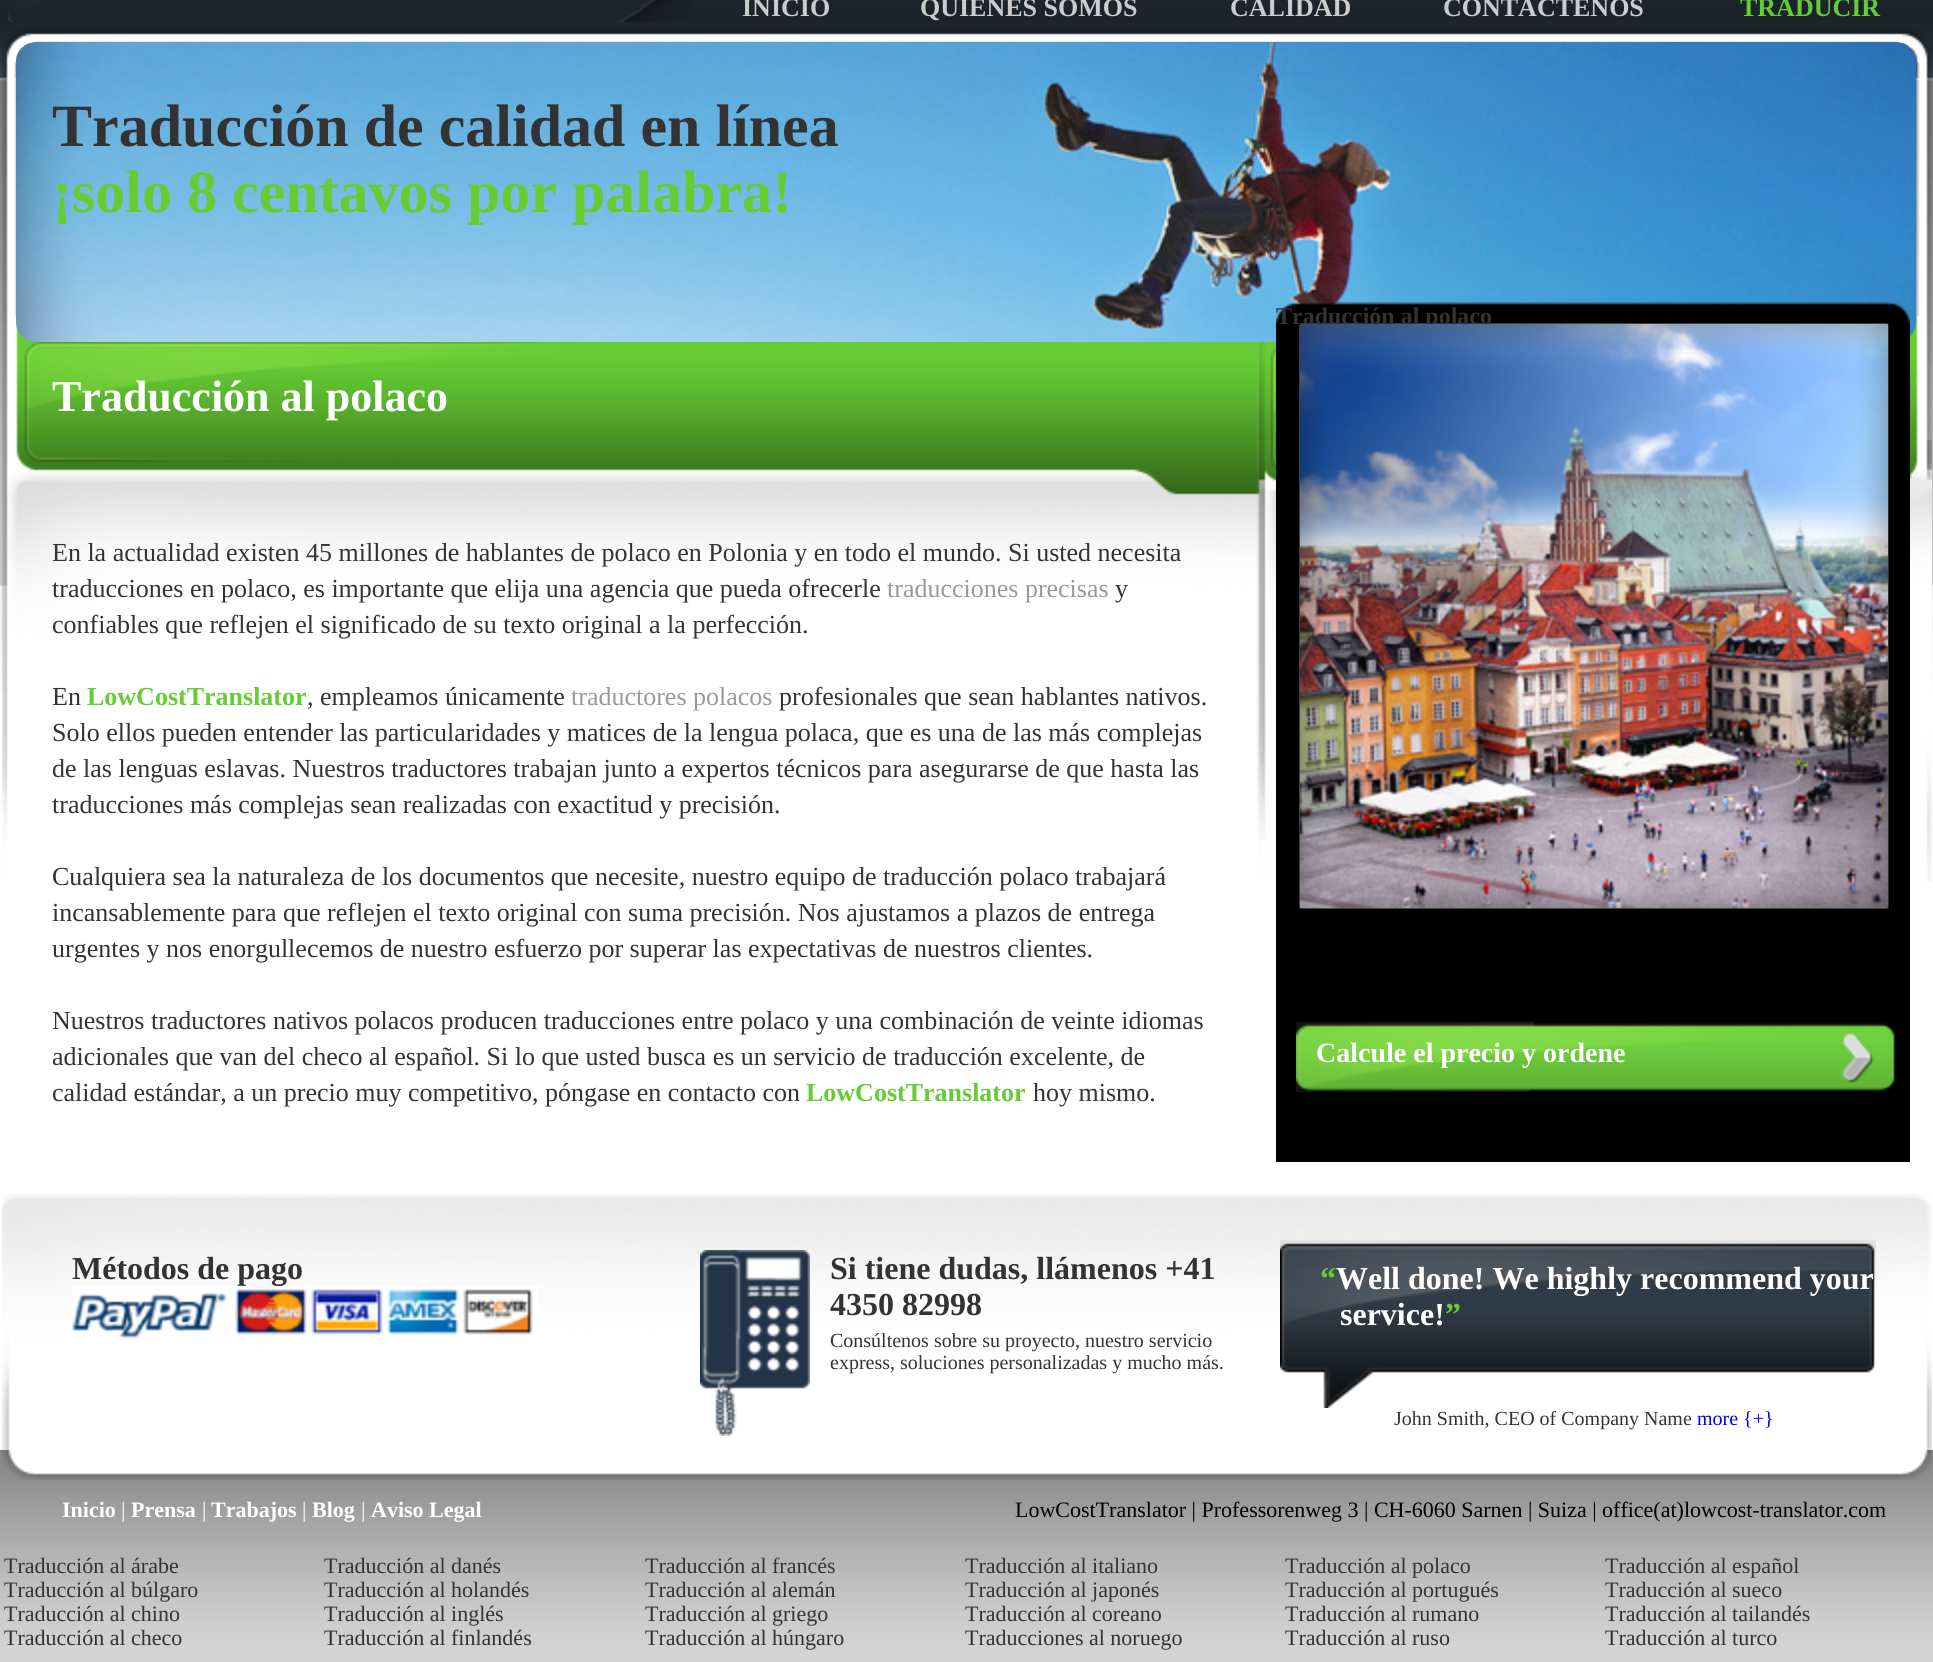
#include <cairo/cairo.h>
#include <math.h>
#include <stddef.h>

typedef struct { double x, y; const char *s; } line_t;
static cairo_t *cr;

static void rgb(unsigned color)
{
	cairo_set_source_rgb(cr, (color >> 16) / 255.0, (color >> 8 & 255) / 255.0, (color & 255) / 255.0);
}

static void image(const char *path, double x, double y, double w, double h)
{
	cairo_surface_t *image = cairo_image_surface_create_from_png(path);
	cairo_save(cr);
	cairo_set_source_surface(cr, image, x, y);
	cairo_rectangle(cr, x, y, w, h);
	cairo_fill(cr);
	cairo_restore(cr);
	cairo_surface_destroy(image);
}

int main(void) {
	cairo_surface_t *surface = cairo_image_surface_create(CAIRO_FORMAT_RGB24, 1933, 1662);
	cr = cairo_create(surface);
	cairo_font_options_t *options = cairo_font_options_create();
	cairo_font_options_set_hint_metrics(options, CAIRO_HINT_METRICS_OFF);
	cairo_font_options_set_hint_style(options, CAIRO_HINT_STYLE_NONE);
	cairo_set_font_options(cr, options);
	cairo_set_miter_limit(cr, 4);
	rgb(0xffffff);
	cairo_paint(cr);
	image("img/1.png", 0, 0, 1933, 694);
	image("img/2.png", 8, 0, 685, 22);
	image("img/3.png", 2, 28, 1930, 854);
	image("img/4.png", 16, 42, 1900, 300);
	image("img/5.png", 1276, 302, 634, 860);
	image("img/7.png", 1296, 1022, 599, 70);
	image("img/8.png", 0, 1450, 1933, 212);
	image("img/9.png", 2, 1193, 1930, 287);
	image("img/11.png", 700, 1250, 110, 186);
	image("img/12.png", 1280, 1240, 596, 168);
	cairo_select_font_face(cr, "Liberation Serif", CAIRO_FONT_SLANT_NORMAL, CAIRO_FONT_WEIGHT_BOLD);
	cairo_set_font_size(cr, 26);
	rgb(0xcccccc);
	{
		static const line_t items[] = {
			{742, 16, "INICIO"},
			{920, 16, "QUIÉNES SOMOS"},
			{1230, 16, "CALIDAD"},
			{1443, 16, "CONTÁCTENOS"},
		};
		for (size_t i = 0; i < sizeof items / sizeof *items; i++) {
			cairo_move_to(cr, items[i].x, items[i].y);
			cairo_show_text(cr, items[i].s);
		}
	}
	rgb(0x66cc33);
	cairo_move_to(cr, 1740, 16);
	cairo_show_text(cr, "TRADUCIR");
	cairo_set_font_size(cr, 60);
	rgb(0x333333);
	cairo_move_to(cr, 52, 146);
	cairo_show_text(cr, "Traducción de calidad en línea");
	rgb(0x66cc33);
	cairo_move_to(cr, 52, 212);
	cairo_show_text(cr, "¡solo 8 centavos por palabra!");
	cairo_set_font_size(cr, 44);
	rgb(0xffffff);
	cairo_move_to(cr, 52, 411);
	cairo_show_text(cr, "Traducción al polaco");
	cairo_select_font_face(cr, "Liberation Serif", CAIRO_FONT_SLANT_NORMAL, CAIRO_FONT_WEIGHT_NORMAL);
	cairo_set_font_size(cr, 26);
	rgb(0x333333);
	cairo_move_to(cr, 52, 561);
	cairo_show_text(cr, "En la actualidad existen 45 millones de hablantes de polaco en Polonia y en todo el mundo. Si usted necesita");
	cairo_move_to(cr, 52, 597);
	cairo_show_text(cr, "traducciones en polaco, es importante que elija una agencia que pueda ofrecerle");
	rgb(0x999999);
	cairo_move_to(cr, 887, 597);
	cairo_show_text(cr, "traducciones precisas");
	rgb(0x333333);
	{
		static const line_t items[] = {
			{1115, 597, "y"},
			{52, 633, "confiables que reflejen el significado de su texto original a la perfección."},
			{52, 705, "En"},
		};
		for (size_t i = 0; i < sizeof items / sizeof *items; i++) {
			cairo_move_to(cr, items[i].x, items[i].y);
			cairo_show_text(cr, items[i].s);
		}
	}
	cairo_select_font_face(cr, "Liberation Serif", CAIRO_FONT_SLANT_NORMAL, CAIRO_FONT_WEIGHT_BOLD);
	rgb(0x66cc33);
	cairo_move_to(cr, 87, 705);
	cairo_show_text(cr, "LowCostTranslator");
	cairo_select_font_face(cr, "Liberation Serif", CAIRO_FONT_SLANT_NORMAL, CAIRO_FONT_WEIGHT_NORMAL);
	rgb(0x333333);
	cairo_move_to(cr, 307, 705);
	cairo_show_text(cr, ", empleamos únicamente");
	rgb(0x999999);
	cairo_move_to(cr, 571, 705);
	cairo_show_text(cr, "traductores polacos");
	rgb(0x333333);
	{
		static const line_t items[] = {
			{779, 705, "profesionales que sean hablantes nativos."},
			{52, 741, "Solo ellos pueden entender las particularidades y matices de la lengua polaca, que es una de las más complejas"},
			{52, 777, "de las lenguas eslavas. Nuestros traductores trabajan junto a expertos técnicos para asegurarse de que hasta las"},
			{52, 813, "traducciones más complejas sean realizadas con exactitud y precisión."},
			{52, 885, "Cualquiera sea la naturaleza de los documentos que necesite, nuestro equipo de traducción polaco trabajará"},
			{52, 921, "incansablemente para que reflejen el texto original con suma precisión. Nos ajustamos a plazos de entrega"},
			{52, 957, "urgentes y nos enorgullecemos de nuestro esfuerzo por superar las expectativas de nuestros clientes."},
			{52, 1029, "Nuestros traductores nativos polacos producen traducciones entre polaco y una combinación de veinte idiomas"},
			{52, 1065, "adicionales que van del checo al español. Si lo que usted busca es un servicio de traducción excelente, de"},
			{52, 1101, "calidad estándar, a un precio muy competitivo, póngase en contacto con"},
		};
		for (size_t i = 0; i < sizeof items / sizeof *items; i++) {
			cairo_move_to(cr, items[i].x, items[i].y);
			cairo_show_text(cr, items[i].s);
		}
	}
	cairo_select_font_face(cr, "Liberation Serif", CAIRO_FONT_SLANT_NORMAL, CAIRO_FONT_WEIGHT_BOLD);
	rgb(0x66cc33);
	cairo_move_to(cr, 806, 1101);
	cairo_show_text(cr, "LowCostTranslator");
	cairo_select_font_face(cr, "Liberation Serif", CAIRO_FONT_SLANT_NORMAL, CAIRO_FONT_WEIGHT_NORMAL);
	rgb(0x333333);
	cairo_move_to(cr, 1033, 1101);
	cairo_show_text(cr, "hoy mismo.");
	cairo_select_font_face(cr, "Liberation Serif", CAIRO_FONT_SLANT_NORMAL, CAIRO_FONT_WEIGHT_BOLD);
	cairo_set_font_size(cr, 24);
	cairo_move_to(cr, 1276, 324);
	cairo_show_text(cr, "Traducción al polaco");
	image("img/6.png", 1300, 324, 588, 584);
	cairo_set_font_size(cr, 28);
	rgb(0xffffff);
	cairo_move_to(cr, 1316, 1062);
	cairo_show_text(cr, "Calcule el precio y ordene");
	cairo_set_font_size(cr, 32);
	rgb(0x333333);
	cairo_move_to(cr, 72, 1279);
	cairo_show_text(cr, "Métodos de pago");
	image("img/10.png", 72, 1286, 466, 54);
	cairo_move_to(cr, 830, 1279);
	cairo_show_text(cr, "Si tiene dudas, llámenos +41");
	cairo_move_to(cr, 830, 1315);
	cairo_show_text(cr, "4350 82998");
	cairo_select_font_face(cr, "Liberation Serif", CAIRO_FONT_SLANT_NORMAL, CAIRO_FONT_WEIGHT_NORMAL);
	cairo_set_font_size(cr, 20);
	cairo_move_to(cr, 830, 1347);
	cairo_show_text(cr, "Consúltenos sobre su proyecto, nuestro servicio");
	cairo_move_to(cr, 830, 1369);
	cairo_show_text(cr, "express, soluciones personalizadas y mucho más.");
	cairo_select_font_face(cr, "Liberation Serif", CAIRO_FONT_SLANT_NORMAL, CAIRO_FONT_WEIGHT_BOLD);
	cairo_set_font_size(cr, 32);
	rgb(0x66cc33);
	cairo_move_to(cr, 1320, 1289);
	cairo_show_text(cr, "“");
	rgb(0xffffff);
	cairo_move_to(cr, 1336, 1289);
	cairo_show_text(cr, "Well done! We highly recommend your");
	cairo_move_to(cr, 1340, 1325);
	cairo_show_text(cr, "service!");
	rgb(0x66cc33);
	cairo_move_to(cr, 1445, 1325);
	cairo_show_text(cr, "”");
	cairo_select_font_face(cr, "Liberation Serif", CAIRO_FONT_SLANT_NORMAL, CAIRO_FONT_WEIGHT_NORMAL);
	cairo_set_font_size(cr, 20);
	rgb(0x333333);
	cairo_move_to(cr, 1394, 1425);
	cairo_show_text(cr, "John Smith, CEO of Company Name");
	rgb(0x0000ee);
	cairo_move_to(cr, 1697, 1425);
	cairo_show_text(cr, "more {+}");
	cairo_select_font_face(cr, "Liberation Serif", CAIRO_FONT_SLANT_NORMAL, CAIRO_FONT_WEIGHT_BOLD);
	cairo_set_font_size(cr, 22);
	rgb(0xffffff);
	cairo_move_to(cr, 62, 1517);
	cairo_show_text(cr, "Inicio");
	cairo_select_font_face(cr, "Liberation Serif", CAIRO_FONT_SLANT_NORMAL, CAIRO_FONT_WEIGHT_NORMAL);
	cairo_move_to(cr, 121, 1517);
	cairo_show_text(cr, "|");
	cairo_select_font_face(cr, "Liberation Serif", CAIRO_FONT_SLANT_NORMAL, CAIRO_FONT_WEIGHT_BOLD);
	cairo_move_to(cr, 131, 1517);
	cairo_show_text(cr, "Prensa");
	cairo_select_font_face(cr, "Liberation Serif", CAIRO_FONT_SLANT_NORMAL, CAIRO_FONT_WEIGHT_NORMAL);
	cairo_move_to(cr, 202, 1517);
	cairo_show_text(cr, "|");
	cairo_select_font_face(cr, "Liberation Serif", CAIRO_FONT_SLANT_NORMAL, CAIRO_FONT_WEIGHT_BOLD);
	cairo_move_to(cr, 211, 1517);
	cairo_show_text(cr, "Trabajos");
	cairo_select_font_face(cr, "Liberation Serif", CAIRO_FONT_SLANT_NORMAL, CAIRO_FONT_WEIGHT_NORMAL);
	cairo_move_to(cr, 302, 1517);
	cairo_show_text(cr, "|");
	cairo_select_font_face(cr, "Liberation Serif", CAIRO_FONT_SLANT_NORMAL, CAIRO_FONT_WEIGHT_BOLD);
	cairo_move_to(cr, 312, 1517);
	cairo_show_text(cr, "Blog");
	cairo_select_font_face(cr, "Liberation Serif", CAIRO_FONT_SLANT_NORMAL, CAIRO_FONT_WEIGHT_NORMAL);
	cairo_move_to(cr, 361, 1517);
	cairo_show_text(cr, "|");
	cairo_select_font_face(cr, "Liberation Serif", CAIRO_FONT_SLANT_NORMAL, CAIRO_FONT_WEIGHT_BOLD);
	cairo_move_to(cr, 371, 1517);
	cairo_show_text(cr, "Aviso Legal");
	cairo_select_font_face(cr, "Liberation Serif", CAIRO_FONT_SLANT_NORMAL, CAIRO_FONT_WEIGHT_NORMAL);
	rgb(0x000000);
	cairo_move_to(cr, 1015, 1517);
	cairo_show_text(cr, "LowCostTranslator | Professorenweg 3 | CH-6060 Sarnen | Suiza | office(at)lowcost-translator.com");
	rgb(0x333333);
	{
		static const line_t items[] = {
			{4, 1573, "Traducción al árabe"},
			{4, 1597, "Traducción al búlgaro"},
			{4, 1621, "Traducción al chino"},
			{4, 1645, "Traducción al checo"},
			{324, 1573, "Traducción al danés"},
			{324, 1597, "Traducción al holandés"},
			{324, 1621, "Traducción al inglés"},
			{324, 1645, "Traducción al finlandés"},
			{645, 1573, "Traducción al francés"},
			{645, 1597, "Traducción al alemán"},
			{645, 1621, "Traducción al griego"},
			{645, 1645, "Traducción al húngaro"},
			{965, 1573, "Traducción al italiano"},
			{965, 1597, "Traducción al japonés"},
			{965, 1621, "Traducción al coreano"},
			{965, 1645, "Traducciones al noruego"},
			{1285, 1573, "Traducción al polaco"},
			{1285, 1597, "Traducción al portugués"},
			{1285, 1621, "Traducción al rumano"},
			{1285, 1645, "Traducción al ruso"},
			{1605, 1573, "Traducción al español"},
			{1605, 1597, "Traducción al sueco"},
			{1605, 1621, "Traducción al tailandés"},
			{1605, 1645, "Traducción al turco"},
		};
		for (size_t i = 0; i < sizeof items / sizeof *items; i++) {
			cairo_move_to(cr, items[i].x, items[i].y);
			cairo_show_text(cr, items[i].s);
		}
	}
	cairo_surface_write_to_png(surface, "page.png");
	cairo_font_options_destroy(options);
	cairo_destroy(cr);
	cairo_surface_destroy(surface);
	return 0;
}
